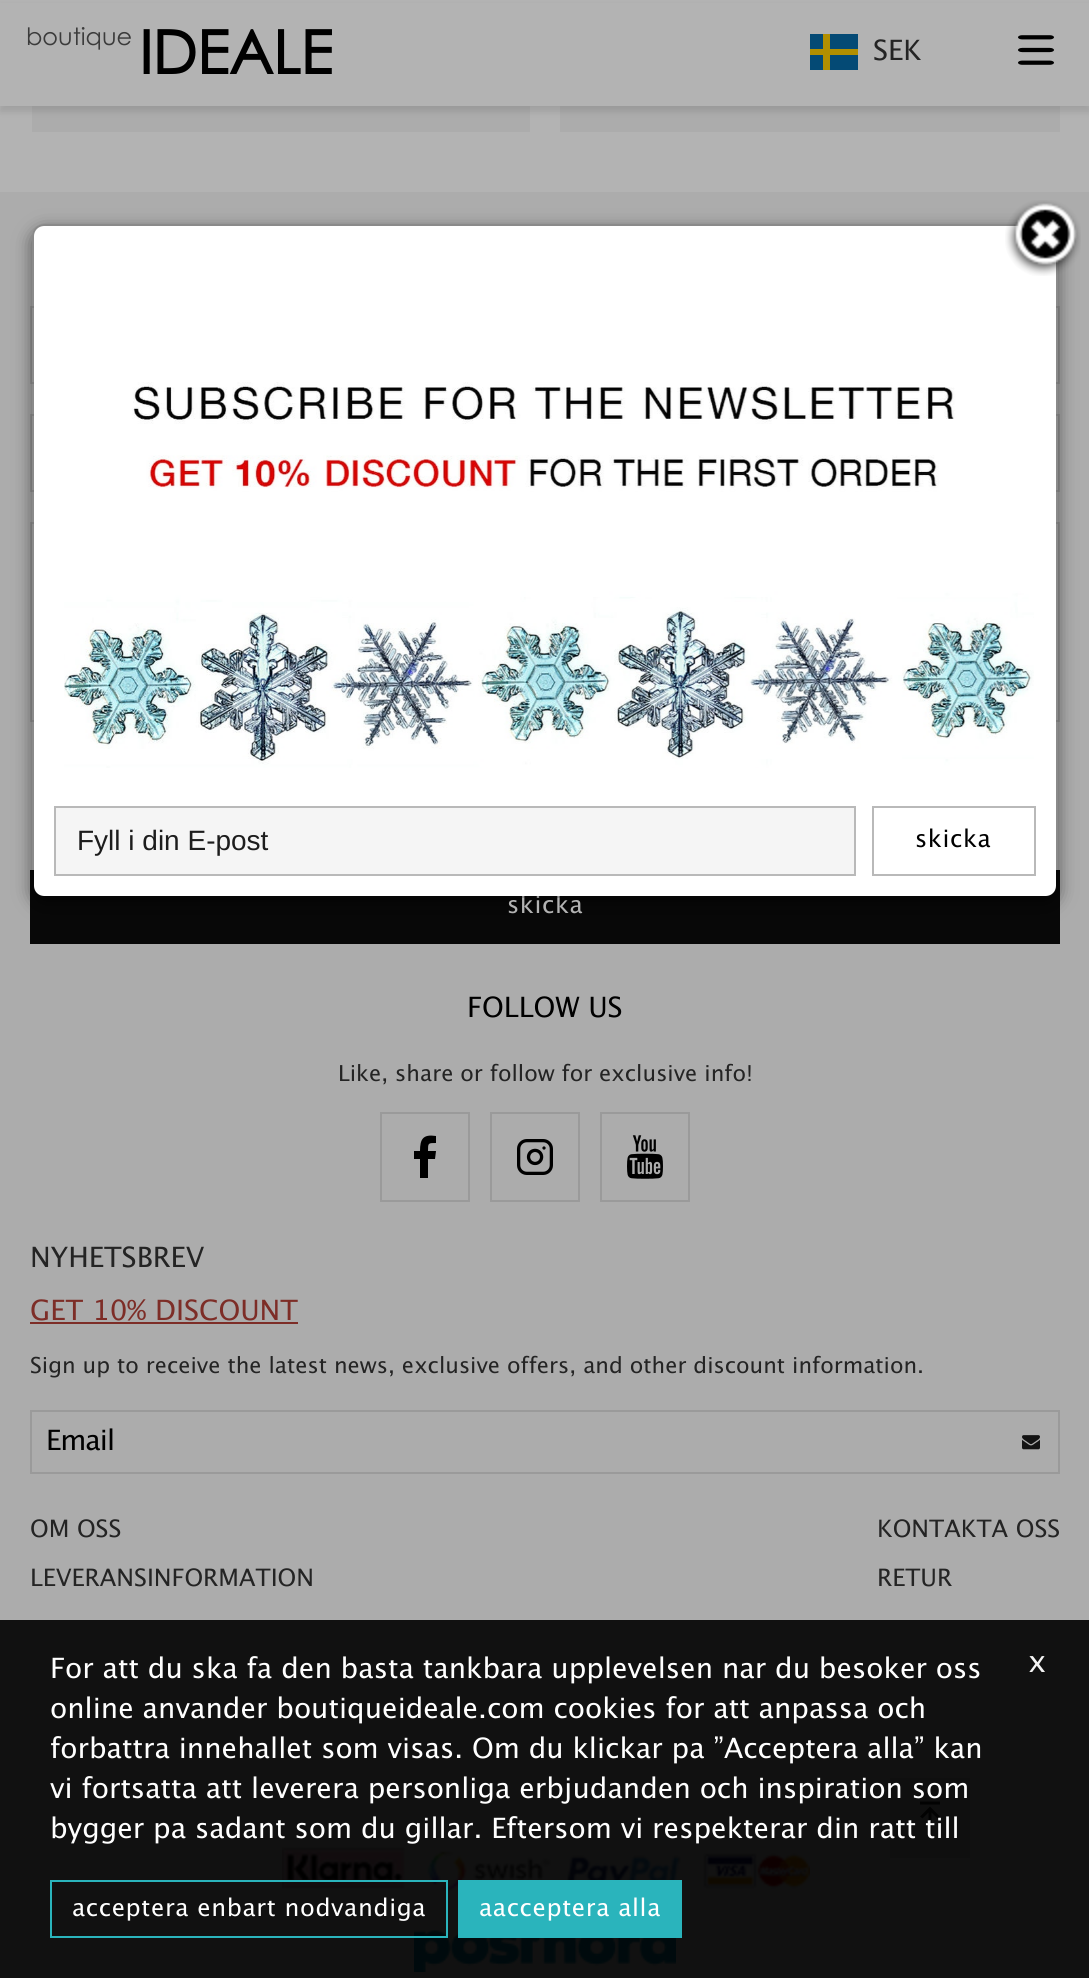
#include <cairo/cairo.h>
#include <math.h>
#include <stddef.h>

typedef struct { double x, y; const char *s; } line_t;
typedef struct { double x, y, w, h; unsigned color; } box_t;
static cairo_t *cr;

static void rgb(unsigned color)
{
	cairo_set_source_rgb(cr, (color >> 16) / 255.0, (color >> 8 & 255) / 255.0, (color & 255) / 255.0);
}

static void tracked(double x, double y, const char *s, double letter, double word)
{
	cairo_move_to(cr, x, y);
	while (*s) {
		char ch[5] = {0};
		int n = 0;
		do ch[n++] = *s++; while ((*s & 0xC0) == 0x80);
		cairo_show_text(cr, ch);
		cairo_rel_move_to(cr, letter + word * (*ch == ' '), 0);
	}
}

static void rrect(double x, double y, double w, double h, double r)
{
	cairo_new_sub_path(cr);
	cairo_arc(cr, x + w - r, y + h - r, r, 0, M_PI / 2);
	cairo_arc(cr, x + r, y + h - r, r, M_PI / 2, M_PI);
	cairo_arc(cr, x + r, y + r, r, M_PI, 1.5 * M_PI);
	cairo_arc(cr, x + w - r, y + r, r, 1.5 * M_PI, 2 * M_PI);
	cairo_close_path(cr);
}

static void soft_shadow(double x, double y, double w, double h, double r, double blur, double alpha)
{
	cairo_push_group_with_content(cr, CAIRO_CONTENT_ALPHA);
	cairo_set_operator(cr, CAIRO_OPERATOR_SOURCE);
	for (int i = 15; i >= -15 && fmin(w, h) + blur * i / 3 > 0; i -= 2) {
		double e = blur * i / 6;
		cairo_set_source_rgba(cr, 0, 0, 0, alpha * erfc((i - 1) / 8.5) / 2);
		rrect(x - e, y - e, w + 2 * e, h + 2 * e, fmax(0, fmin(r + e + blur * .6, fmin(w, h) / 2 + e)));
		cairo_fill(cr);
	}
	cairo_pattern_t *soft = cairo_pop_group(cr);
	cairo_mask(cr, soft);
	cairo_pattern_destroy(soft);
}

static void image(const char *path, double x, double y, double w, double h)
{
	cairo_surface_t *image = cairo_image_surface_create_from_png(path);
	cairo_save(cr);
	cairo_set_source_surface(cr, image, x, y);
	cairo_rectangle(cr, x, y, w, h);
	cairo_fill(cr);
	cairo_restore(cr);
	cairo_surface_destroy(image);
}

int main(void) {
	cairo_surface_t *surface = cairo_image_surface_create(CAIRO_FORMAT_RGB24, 1089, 1978);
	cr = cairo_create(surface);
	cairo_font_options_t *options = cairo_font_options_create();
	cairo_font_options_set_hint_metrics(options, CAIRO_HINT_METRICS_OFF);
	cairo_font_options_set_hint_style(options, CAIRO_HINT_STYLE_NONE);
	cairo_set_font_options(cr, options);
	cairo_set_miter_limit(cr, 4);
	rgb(0xb3b3b3);
	cairo_paint(cr);
	rgb(0xacacac);
	cairo_rectangle(cr, 32, 106, 498, 26);
	cairo_fill(cr);
	cairo_rectangle(cr, 560, 106, 500, 26);
	cairo_fill(cr);
	rgb(0x000000);
	soft_shadow(0, 6, 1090, 106, 0, 3, 0.1);
	{
		static const box_t items[] = {
			{0, 3, 1089, 103, 0xb3b3b3},
			{810, 34, 48, 36, 0x044a75},
			{810, 49, 48, 6, 0xb28f00},
			{823, 34, 7, 36, 0xb28f00},
		};
		for (size_t i = 0; i < sizeof items / sizeof *items; i++) {
			rgb(items[i].color);
			cairo_rectangle(cr, items[i].x, items[i].y, items[i].w, items[i].h);
			cairo_fill(cr);
		}
	}
	image("img/1.png", 1018, 35, 36, 30);
	rgb(0xacacac);
	cairo_rectangle(cr, 0, 192, 1089, 1786);
	cairo_fill(cr);
	cairo_rectangle(cr, 31, 307, 1028, 76);
	rgb(0x9a9a9a);
	cairo_stroke(cr);
	cairo_rectangle(cr, 31, 415, 1028, 76);
	cairo_stroke(cr);
	cairo_rectangle(cr, 31, 523, 1028, 198);
	cairo_stroke(cr);
	rgb(0x080808);
	cairo_rectangle(cr, 30, 870, 1030, 74);
	cairo_fill(cr);
	cairo_save(cr);
	cairo_set_fill_rule(cr, CAIRO_FILL_RULE_EVEN_ODD);
	cairo_new_path(cr);
	cairo_move_to(cr, 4, 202);
	cairo_line_to(cr, 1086, 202);
	cairo_line_to(cr, 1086, 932);
	cairo_line_to(cr, 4, 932);
	cairo_close_path(cr);
	cairo_move_to(cr, 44, 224);
	cairo_line_to(cr, 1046, 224);
	cairo_curve_to(cr, 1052.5, 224, 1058, 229.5, 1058, 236);
	cairo_line_to(cr, 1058, 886);
	cairo_curve_to(cr, 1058, 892.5, 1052.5, 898, 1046, 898);
	cairo_line_to(cr, 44, 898);
	cairo_curve_to(cr, 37.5, 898, 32, 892.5, 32, 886);
	cairo_line_to(cr, 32, 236);
	cairo_curve_to(cr, 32, 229.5, 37.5, 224, 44, 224);
	cairo_close_path(cr);
	cairo_clip(cr);
	rgb(0x000000);
	soft_shadow(32, 230, 1026, 674, 12, 9, 0.5);
	cairo_restore(cr);
	rgb(0x000000);
	cairo_new_path(cr);
	cairo_move_to(cr, 436, 1136);
	cairo_line_to(cr, 436, 1143);
	cairo_curve_to(cr, 428, 1143, 428, 1143, 428, 1151);
	cairo_line_to(cr, 436, 1151);
	cairo_line_to(cr, 435, 1159);
	cairo_line_to(cr, 428, 1159);
	cairo_line_to(cr, 428, 1178);
	cairo_line_to(cr, 420, 1178);
	cairo_line_to(cr, 420, 1159);
	cairo_line_to(cr, 414, 1159);
	cairo_line_to(cr, 414, 1151);
	cairo_line_to(cr, 420, 1151);
	cairo_curve_to(cr, 420, 1139, 423, 1134, 436, 1136);
	cairo_close_path(cr);
	cairo_fill(cr);
	cairo_rectangle(cr, 381, 1113, 88, 88);
	rgb(0x9a9a9a);
	cairo_stroke(cr);
	image("img/4.png", 490, 1112, 90, 90);
	image("img/5.png", 600, 1112, 90, 90);
	rgb(0x7d2d27);
	cairo_rectangle(cr, 30, 1322, 268, 2);
	cairo_fill(cr);
	cairo_rectangle(cr, 31, 1411, 1028, 62);
	rgb(0x9a9a9a);
	cairo_stroke(cr);
	image("img/6.png", 1022, 1435, 18, 15);
	image("img/7.png", 282, 1847, 528, 44);
	image("img/8.png", 414, 1930, 262, 42);
	rgb(0x9e9e9e);
	cairo_rectangle(cr, 890, 1778, 80, 80);
	cairo_fill(cr);
	rgb(0x141414);
	cairo_new_path(cr);
	cairo_move_to(cr, 920, 1804.5);
	cairo_line_to(cr, 920, 1801.5);
	cairo_line_to(cr, 940, 1801.5);
	cairo_line_to(cr, 940, 1804.5);
	cairo_close_path(cr);
	cairo_move_to(cr, 922.5, 1818.5);
	cairo_line_to(cr, 920, 1816.5);
	cairo_line_to(cr, 930, 1806.5);
	cairo_line_to(cr, 940, 1816.5);
	cairo_line_to(cr, 937.5, 1818.5);
	cairo_line_to(cr, 931.5, 1812.5);
	cairo_line_to(cr, 931.5, 1836.5);
	cairo_line_to(cr, 928.5, 1836.5);
	cairo_line_to(cr, 928.5, 1812.5);
	cairo_close_path(cr);
	cairo_fill(cr);
	cairo_set_source_rgba(cr, 0, 0, 0, 0.9);
	cairo_rectangle(cr, 0, 1620, 1089, 358);
	cairo_fill(cr);
	cairo_rectangle(cr, 51, 1881, 396, 56);
	rgb(0x2ab4bc);
	cairo_stroke(cr);
	cairo_rectangle(cr, 458, 1880, 224, 58);
	cairo_fill(cr);
	cairo_select_font_face(cr, "Century Gothic", CAIRO_FONT_SLANT_NORMAL, CAIRO_FONT_WEIGHT_NORMAL);
	cairo_set_font_size(cr, 24);
	rgb(0x3b3b3b);
	cairo_move_to(cr, 26, 45);
	cairo_show_text(cr, "boutique");
	cairo_select_font_face(cr, "Century Gothic", CAIRO_FONT_SLANT_NORMAL, CAIRO_FONT_WEIGHT_BOLD);
	cairo_set_font_size(cr, 60);
	rgb(0x000000);
	tracked(139, 74, "IDEALE", -0.25, 0);
	cairo_select_font_face(cr, "Lucida Grande", CAIRO_FONT_SLANT_NORMAL, CAIRO_FONT_WEIGHT_NORMAL);
	cairo_set_font_size(cr, 28);
	rgb(0x242424);
	cairo_move_to(cr, 873, 60);
	cairo_show_text(cr, "SEK");
	cairo_set_font_size(cr, 24);
	rgb(0xb3b3b3);
	tracked(507, 913, "skicka", 0.6, 0);
	rgb(0xffffff);
	rrect(34, 226, 1022, 670, 10);
	cairo_fill(cr);
	rrect(33, 225, 1024, 672, 11);
	cairo_set_source_rgba(cr, 0, 0, 0, 0.2);
	cairo_stroke(cr);
	image("img/2.png", 1005, 200, 76, 76);
	cairo_rectangle(cr, 873, 807, 162, 68);
	rgb(0xb9b9b9);
	cairo_stroke(cr);
	rgb(0x000000);
	tracked(915, 847, "skicka", 0.6, 0);
	rgb(0xf5f5f5);
	cairo_rectangle(cr, 55, 807, 800, 68);
	cairo_fill_preserve(cr);
	rgb(0xb9b9b9);
	cairo_stroke(cr);
	cairo_select_font_face(cr, "Liberation Sans", CAIRO_FONT_SLANT_NORMAL, CAIRO_FONT_WEIGHT_NORMAL);
	cairo_set_font_size(cr, 28);
	rgb(0x1d1d1d);
	cairo_move_to(cr, 77, 850);
	cairo_show_text(cr, "Fyll i din E-post");
	image("img/3.png", 64, 382, 970, 386);
	cairo_select_font_face(cr, "Lucida Grande", CAIRO_FONT_SLANT_NORMAL, CAIRO_FONT_WEIGHT_NORMAL);
	rgb(0x000000);
	cairo_move_to(cr, 467, 1017);
	cairo_show_text(cr, "FOLLOW US");
	cairo_set_font_size(cr, 22);
	rgb(0x242424);
	cairo_move_to(cr, 338, 1081);
	cairo_show_text(cr, "Like, share or follow for exclusive info!");
	cairo_set_font_size(cr, 28);
	cairo_move_to(cr, 30, 1267);
	cairo_show_text(cr, "NYHETSBREV");
	rgb(0x7d2d27);
	cairo_move_to(cr, 30, 1320);
	cairo_show_text(cr, "GET 10% DISCOUNT");
	cairo_set_font_size(cr, 22);
	rgb(0x242424);
	cairo_move_to(cr, 30, 1373);
	cairo_show_text(cr, "Sign up to receive the latest news, exclusive offers, and other discount information.");
	cairo_set_font_size(cr, 28);
	rgb(0x000000);
	tracked(46, 1450, "Email", -1, 0);
	cairo_set_font_size(cr, 24);
	rgb(0x242424);
	{
		static const line_t items[] = {
			{30, 1537, "OM OSS"},
			{30, 1586, "LEVERANSINFORMATION"},
			{877, 1537, "KONTAKTA OSS"},
			{877, 1586, "RETUR"},
		};
		for (size_t i = 0; i < sizeof items / sizeof *items; i++) {
			cairo_move_to(cr, items[i].x, items[i].y);
			cairo_show_text(cr, items[i].s);
		}
	}
	cairo_set_font_size(cr, 28);
	rgb(0xffffff);
	{
		static const line_t items[] = {
			{50, 1678, "For att du ska fa den basta tankbara upplevelsen nar du besoker oss"},
			{50, 1718, "online anvander boutiqueideale.com cookies for att anpassa och"},
			{50, 1758, "forbattra innehallet som visas. Om du klickar pa ”Acceptera alla” kan"},
			{50, 1798, "vi fortsatta att leverera personliga erbjudanden och inspiration som"},
			{50, 1838, "bygger pa sadant som du gillar. Eftersom vi respekterar din ratt till"},
		};
		for (size_t i = 0; i < sizeof items / sizeof *items; i++) {
			cairo_move_to(cr, items[i].x, items[i].y);
			cairo_show_text(cr, items[i].s);
		}
	}
	cairo_set_font_size(cr, 30);
	rgb(0xf5f5f5);
	cairo_move_to(cr, 1028, 1672);
	cairo_show_text(cr, "x");
	cairo_set_font_size(cr, 24);
	rgb(0xffffff);
	tracked(72, 1916, "acceptera enbart nodvandiga", 0.6, 0);
	tracked(479, 1916, "aacceptera alla", 0.6, 0);
	cairo_surface_write_to_png(surface, "page.png");
	cairo_font_options_destroy(options);
	cairo_destroy(cr);
	cairo_surface_destroy(surface);
	return 0;
}
